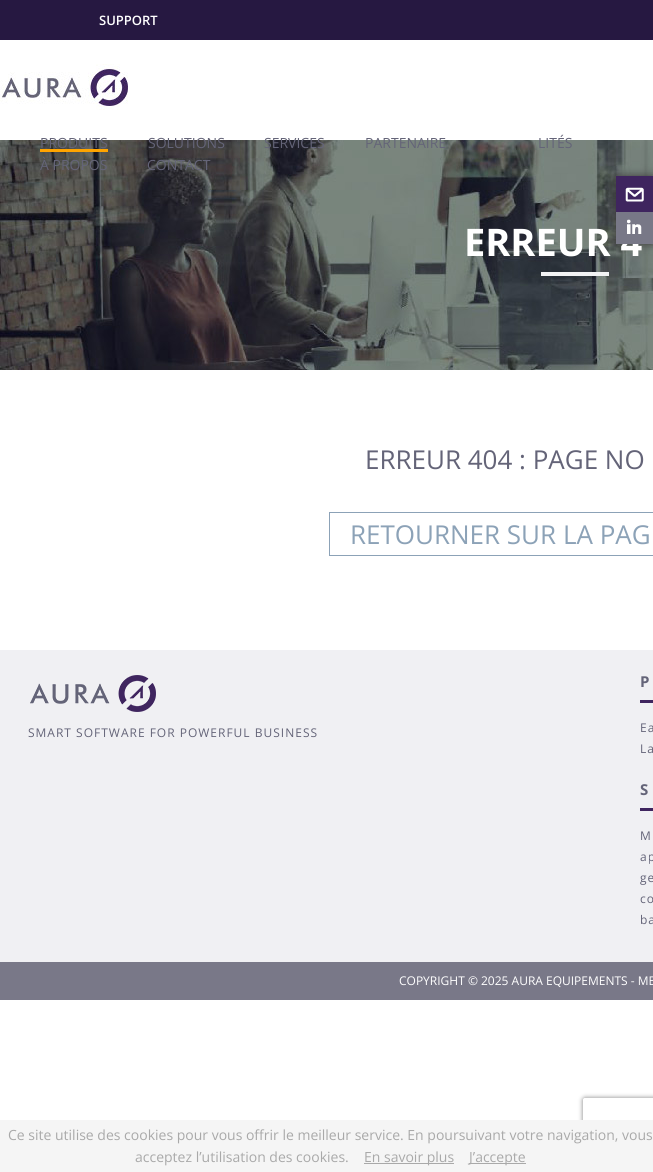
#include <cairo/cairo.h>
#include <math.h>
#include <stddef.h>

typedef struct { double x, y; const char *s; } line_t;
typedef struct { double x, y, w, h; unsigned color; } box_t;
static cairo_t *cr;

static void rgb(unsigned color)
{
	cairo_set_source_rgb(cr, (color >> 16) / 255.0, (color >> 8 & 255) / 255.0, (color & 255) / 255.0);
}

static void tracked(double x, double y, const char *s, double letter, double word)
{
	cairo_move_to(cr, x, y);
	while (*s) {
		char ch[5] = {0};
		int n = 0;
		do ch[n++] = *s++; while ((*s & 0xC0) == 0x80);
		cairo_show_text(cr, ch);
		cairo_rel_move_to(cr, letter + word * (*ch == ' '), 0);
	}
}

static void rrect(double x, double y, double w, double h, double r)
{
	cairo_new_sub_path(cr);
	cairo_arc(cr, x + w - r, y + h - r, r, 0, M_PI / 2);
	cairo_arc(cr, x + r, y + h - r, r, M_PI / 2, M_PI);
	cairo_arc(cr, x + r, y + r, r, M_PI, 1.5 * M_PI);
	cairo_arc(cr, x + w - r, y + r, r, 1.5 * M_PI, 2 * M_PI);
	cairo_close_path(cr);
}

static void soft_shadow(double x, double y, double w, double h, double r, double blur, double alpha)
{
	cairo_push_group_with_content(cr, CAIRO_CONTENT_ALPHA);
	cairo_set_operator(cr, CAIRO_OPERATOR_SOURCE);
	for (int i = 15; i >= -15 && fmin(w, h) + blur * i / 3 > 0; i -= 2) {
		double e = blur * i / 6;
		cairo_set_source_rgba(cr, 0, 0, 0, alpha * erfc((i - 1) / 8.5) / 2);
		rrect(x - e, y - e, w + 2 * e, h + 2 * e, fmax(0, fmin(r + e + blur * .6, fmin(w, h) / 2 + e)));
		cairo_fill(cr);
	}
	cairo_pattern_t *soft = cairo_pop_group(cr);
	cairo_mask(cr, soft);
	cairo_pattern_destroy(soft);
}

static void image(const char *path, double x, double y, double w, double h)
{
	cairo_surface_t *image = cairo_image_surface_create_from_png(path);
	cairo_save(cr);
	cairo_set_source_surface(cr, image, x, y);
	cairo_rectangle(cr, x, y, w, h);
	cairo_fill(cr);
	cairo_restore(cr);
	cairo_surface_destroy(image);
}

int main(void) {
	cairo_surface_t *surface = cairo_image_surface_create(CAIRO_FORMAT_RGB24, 653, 1172);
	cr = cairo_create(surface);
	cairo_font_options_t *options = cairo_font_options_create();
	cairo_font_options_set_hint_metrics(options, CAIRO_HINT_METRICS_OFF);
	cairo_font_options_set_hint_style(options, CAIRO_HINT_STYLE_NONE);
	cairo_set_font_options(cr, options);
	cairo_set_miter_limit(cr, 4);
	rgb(0xffffff);
	cairo_paint(cr);
	rgb(0x261841);
	cairo_rectangle(cr, 0, 0, 653, 40);
	cairo_fill(cr);
	image("img/1.png", 0, 64, 128, 46);
	image("img/4.png", 0, 140, 653, 230);
	rgb(0xffa400);
	cairo_rectangle(cr, 40, 149, 68, 3);
	cairo_fill(cr);
	rgb(0x383737);
	soft_shadow(616, 176, 37, 68, 0, 5, 1);
	rgb(0x3f255f);
	cairo_rectangle(cr, 616, 176, 37, 36);
	cairo_fill(cr);
	image("img/2.png", 625, 187, 19, 15);
	rgb(0xf2f3f4);
	cairo_rectangle(cr, 541, 272, 68, 4);
	cairo_fill(cr);
	cairo_rectangle(cr, 329.5, 512.5, 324, 43);
	rgb(0x8ca2b7);
	cairo_set_line_width(cr, 1);
	cairo_stroke(cr);
	rgb(0xf0f0f3);
	cairo_rectangle(cr, 0, 650, 653, 312);
	cairo_fill(cr);
	image("img/5.png", 30, 675, 126, 37);
	{
		static const box_t items[] = {
			{640, 700, 13, 3, 0x3f255f},
			{640, 808, 13, 3, 0x3f255f},
			{0, 962, 653, 38, 0x797888},
		};
		for (size_t i = 0; i < sizeof items / sizeof *items; i++) {
			rgb(items[i].color);
			cairo_rectangle(cr, items[i].x, items[i].y, items[i].w, items[i].h);
			cairo_fill(cr);
		}
	}
	cairo_save(cr);
	cairo_set_fill_rule(cr, CAIRO_FILL_RULE_EVEN_ODD);
	cairo_new_path(cr);
	cairo_move_to(cr, 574, 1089);
	cairo_line_to(cr, 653, 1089);
	cairo_line_to(cr, 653, 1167);
	cairo_line_to(cr, 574, 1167);
	cairo_close_path(cr);
	cairo_move_to(cr, 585, 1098);
	cairo_line_to(cr, 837, 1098);
	cairo_curve_to(cr, 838, 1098, 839, 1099, 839, 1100);
	cairo_line_to(cr, 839, 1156);
	cairo_curve_to(cr, 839, 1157, 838, 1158, 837, 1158);
	cairo_line_to(cr, 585, 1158);
	cairo_curve_to(cr, 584, 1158, 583, 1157, 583, 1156);
	cairo_line_to(cr, 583, 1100);
	cairo_curve_to(cr, 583, 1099, 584, 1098, 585, 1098);
	cairo_close_path(cr);
	cairo_clip(cr);
	rgb(0x808080);
	soft_shadow(583, 1098, 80, 60, 2, 2.5, 1);
	cairo_restore(cr);
	{
		static const box_t items[] = {
			{0, 1120, 653, 52, 0xf5f5f5},
			{364, 1163, 90, 1, 0xa9a9a9},
			{469, 1163, 57, 1, 0xa9a9a9},
		};
		for (size_t i = 0; i < sizeof items / sizeof *items; i++) {
			rgb(items[i].color);
			cairo_rectangle(cr, items[i].x, items[i].y, items[i].w, items[i].h);
			cairo_fill(cr);
		}
	}
	cairo_select_font_face(cr, "Open Sans SemiBold", CAIRO_FONT_SLANT_NORMAL, CAIRO_FONT_WEIGHT_NORMAL);
	cairo_set_font_size(cr, 13);
	rgb(0xffffff);
	cairo_move_to(cr, 99, 25);
	cairo_show_text(cr, "SUPPORT");
	cairo_select_font_face(cr, "Open Sans", CAIRO_FONT_SLANT_NORMAL, CAIRO_FONT_WEIGHT_NORMAL);
	cairo_set_font_size(cr, 14);
	rgb(0x646478);
	{
		static const line_t items[] = {
			{40, 148, "PRODUITS"},
			{148, 148, "SOLUTIONS"},
			{264, 148, "SERVICES"},
			{365, 148, "PARTENAIRE"},
			{538, 148, "LITÉS"},
			{40, 170, "À PROPOS"},
			{147, 170, "CONTACT"},
		};
		for (size_t i = 0; i < sizeof items / sizeof *items; i++) {
			cairo_move_to(cr, items[i].x, items[i].y);
			cairo_show_text(cr, items[i].s);
		}
	}
	cairo_select_font_face(cr, "Open Sans", CAIRO_FONT_SLANT_NORMAL, CAIRO_FONT_WEIGHT_BOLD);
	cairo_set_font_size(cr, 38);
	rgb(0xffffff);
	cairo_move_to(cr, 464, 256);
	cairo_show_text(cr, "ERREUR 4");
	rgb(0x787887);
	cairo_rectangle(cr, 616, 212, 37, 32);
	cairo_fill(cr);
	image("img/3.png", 627, 219, 15, 15);
	cairo_select_font_face(cr, "Open Sans", CAIRO_FONT_SLANT_NORMAL, CAIRO_FONT_WEIGHT_NORMAL);
	cairo_set_font_size(cr, 26);
	rgb(0x646478);
	cairo_move_to(cr, 365, 469);
	cairo_show_text(cr, "ERREUR 404 : PAGE NO");
	rgb(0x8ca2b7);
	cairo_move_to(cr, 350, 544);
	cairo_show_text(cr, "RETOURNER SUR LA PAG");
	cairo_set_font_size(cr, 12);
	rgb(0x646478);
	tracked(28, 737, "SMART SOFTWARE FOR POWERFUL BUSINESS", 1, 0);
	cairo_select_font_face(cr, "Open Sans", CAIRO_FONT_SLANT_NORMAL, CAIRO_FONT_WEIGHT_BOLD);
	cairo_set_font_size(cr, 15);
	cairo_move_to(cr, 640, 687);
	cairo_show_text(cr, "P");
	cairo_select_font_face(cr, "Open Sans", CAIRO_FONT_SLANT_NORMAL, CAIRO_FONT_WEIGHT_NORMAL);
	cairo_set_font_size(cr, 12);
	tracked(640, 732, "Ea", 1, 0);
	tracked(640, 753, "La", 1, 0);
	cairo_select_font_face(cr, "Open Sans", CAIRO_FONT_SLANT_NORMAL, CAIRO_FONT_WEIGHT_BOLD);
	cairo_set_font_size(cr, 15);
	cairo_move_to(cr, 640, 795);
	cairo_show_text(cr, "S");
	cairo_select_font_face(cr, "Open Sans", CAIRO_FONT_SLANT_NORMAL, CAIRO_FONT_WEIGHT_NORMAL);
	cairo_set_font_size(cr, 12);
	{
		static const line_t items[] = {
			{640, 840, "M"},
			{640, 861, "ap"},
			{640, 882, "ge"},
			{640, 903, "co"},
			{640, 924, "ba"},
		};
		for (size_t i = 0; i < sizeof items / sizeof *items; i++) {
			tracked(items[i].x, items[i].y, items[i].s, 1, 0);
		}
	}
	rgb(0xffffff);
	cairo_move_to(cr, 399, 985);
	cairo_show_text(cr, "COPYRIGHT © 2025 AURA EQUIPEMENTS - ME");
	cairo_set_font_size(cr, 14);
	rgb(0xa9a9a9);
	{
		static const line_t items[] = {
			{8, 1140, "Ce site utilise des cookies pour vous offrir le meilleur service. En poursuivant votre navigation, vous"},
			{135, 1162, "acceptez l’utilisation des cookies."},
			{364, 1162, "En savoir plus"},
			{469, 1162, "J’accepte"},
		};
		for (size_t i = 0; i < sizeof items / sizeof *items; i++) {
			cairo_move_to(cr, items[i].x, items[i].y);
			cairo_show_text(cr, items[i].s);
		}
	}
	cairo_surface_write_to_png(surface, "page.png");
	cairo_font_options_destroy(options);
	cairo_destroy(cr);
	cairo_surface_destroy(surface);
	return 0;
}
